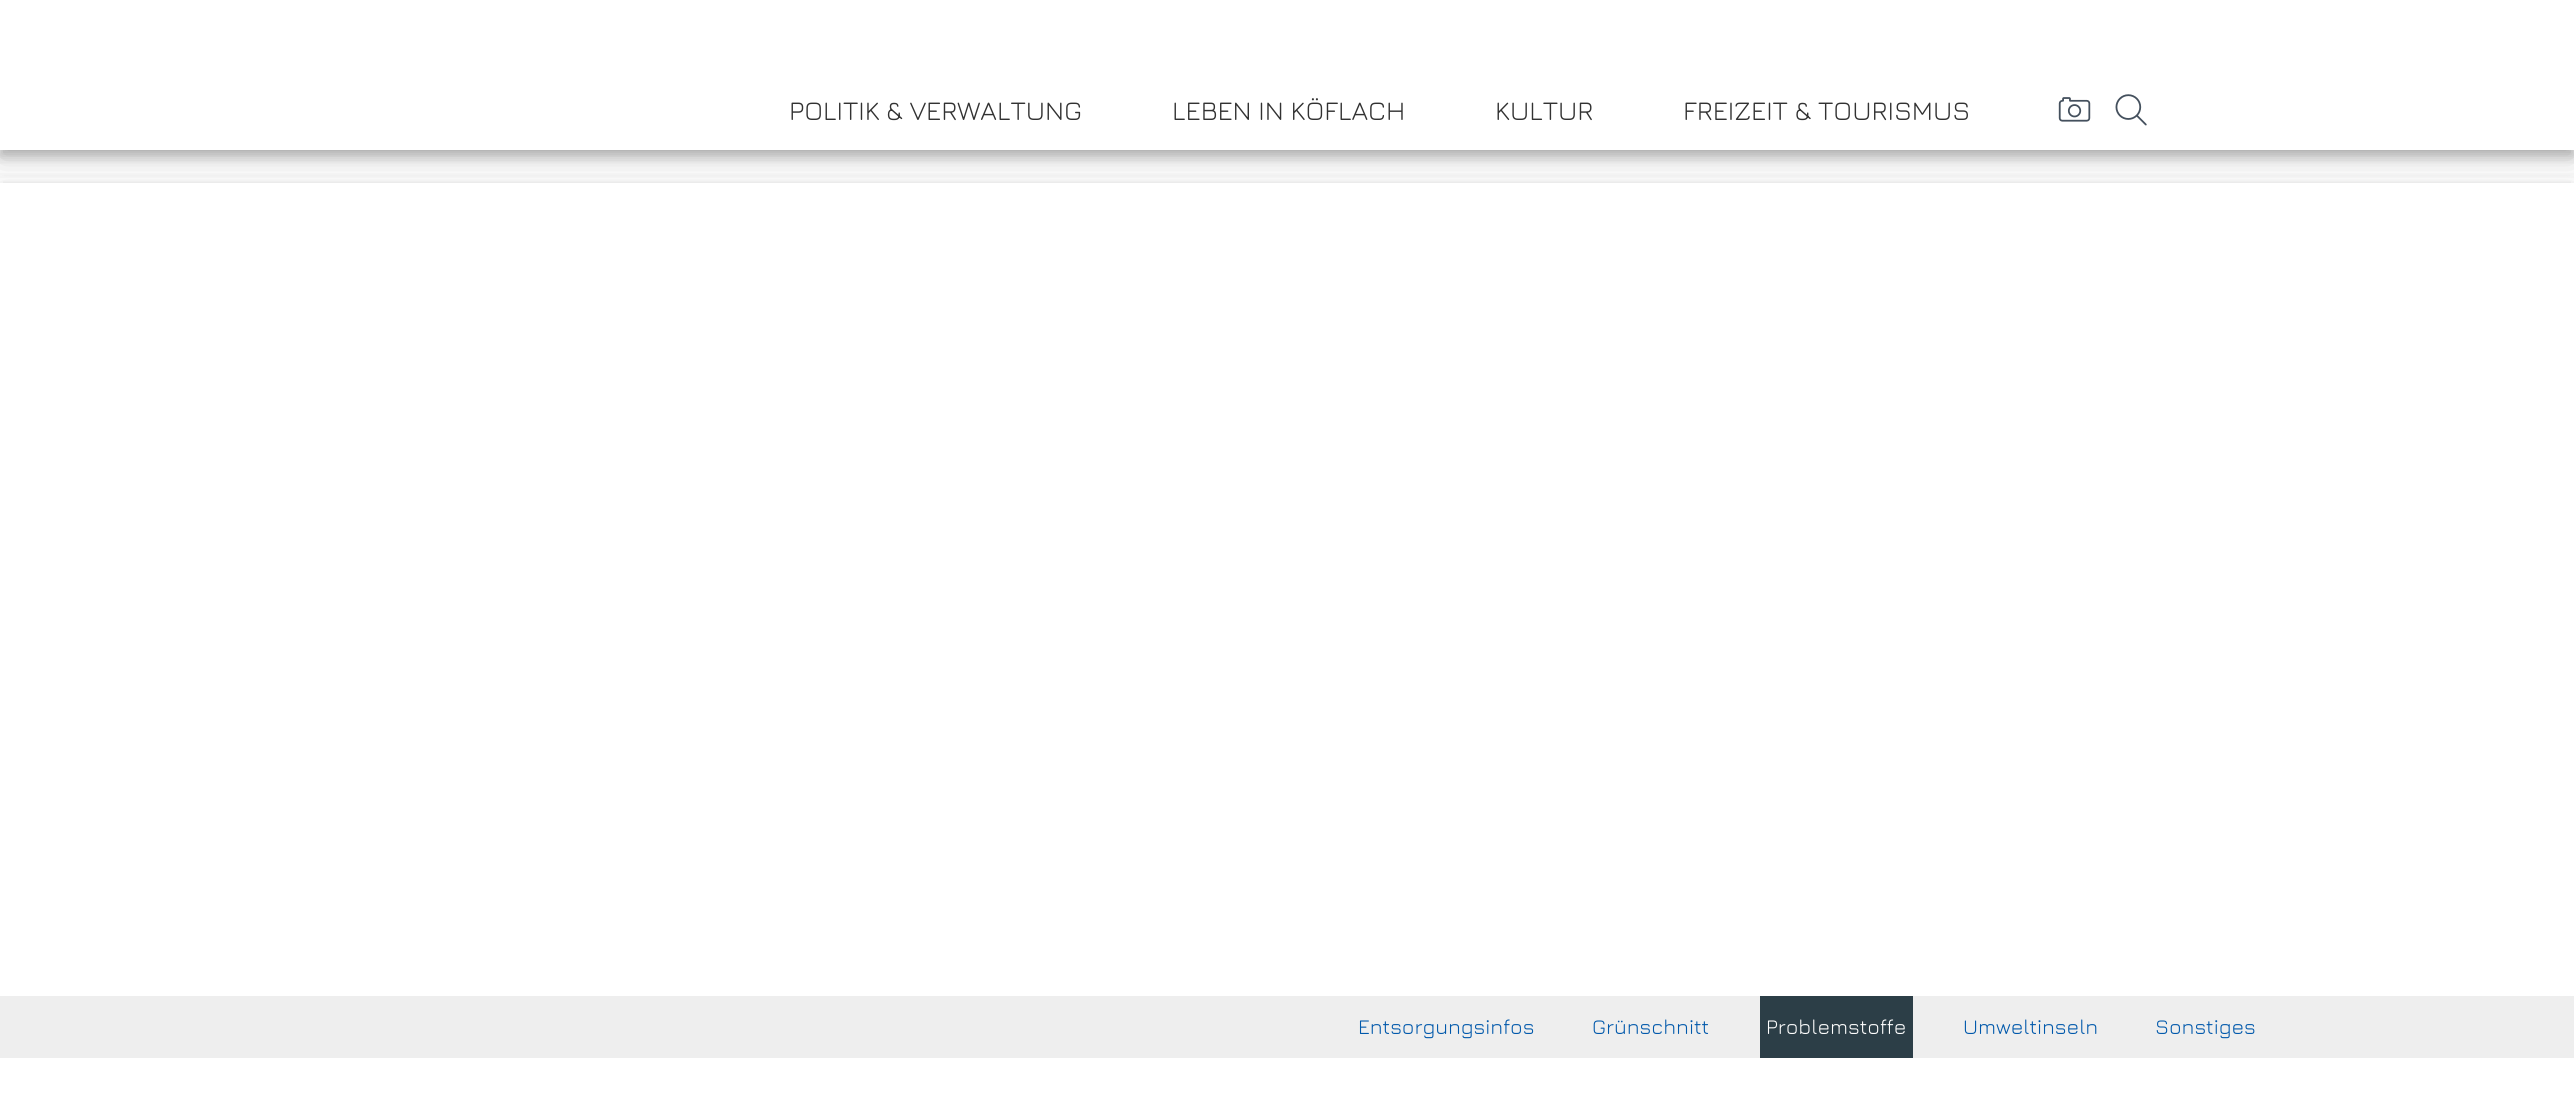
#include <cairo/cairo.h>
#include <math.h>
#include <stddef.h>

typedef struct { double x, y; const char *s; } line_t;
static cairo_t *cr;

static void rgb(unsigned color)
{
	cairo_set_source_rgb(cr, (color >> 16) / 255.0, (color >> 8 & 255) / 255.0, (color & 255) / 255.0);
}

static void rrect(double x, double y, double w, double h, double r)
{
	cairo_new_sub_path(cr);
	cairo_arc(cr, x + w - r, y + h - r, r, 0, M_PI / 2);
	cairo_arc(cr, x + r, y + h - r, r, M_PI / 2, M_PI);
	cairo_arc(cr, x + r, y + r, r, M_PI, 1.5 * M_PI);
	cairo_arc(cr, x + w - r, y + r, r, 1.5 * M_PI, 2 * M_PI);
	cairo_close_path(cr);
}

static void soft_shadow(double x, double y, double w, double h, double r, double blur, double alpha)
{
	cairo_push_group_with_content(cr, CAIRO_CONTENT_ALPHA);
	cairo_set_operator(cr, CAIRO_OPERATOR_SOURCE);
	for (int i = 15; i >= -15 && fmin(w, h) + blur * i / 3 > 0; i -= 2) {
		double e = blur * i / 6;
		cairo_set_source_rgba(cr, 0, 0, 0, alpha * erfc((i - 1) / 8.5) / 2);
		rrect(x - e, y - e, w + 2 * e, h + 2 * e, fmax(0, fmin(r + e + blur * .6, fmin(w, h) / 2 + e)));
		cairo_fill(cr);
	}
	cairo_pattern_t *soft = cairo_pop_group(cr);
	cairo_mask(cr, soft);
	cairo_pattern_destroy(soft);
}

static void image(const char *path, double x, double y, double w, double h)
{
	cairo_surface_t *image = cairo_image_surface_create_from_png(path);
	cairo_save(cr);
	cairo_set_source_surface(cr, image, x, y);
	cairo_rectangle(cr, x, y, w, h);
	cairo_fill(cr);
	cairo_restore(cr);
	cairo_surface_destroy(image);
}

int main(void) {
	cairo_surface_t *surface = cairo_image_surface_create(CAIRO_FORMAT_RGB24, 2574, 1109);
	cr = cairo_create(surface);
	cairo_font_options_t *options = cairo_font_options_create();
	cairo_font_options_set_hint_metrics(options, CAIRO_HINT_METRICS_OFF);
	cairo_font_options_set_hint_style(options, CAIRO_HINT_STYLE_NONE);
	cairo_set_font_options(cr, options);
	cairo_set_miter_limit(cr, 4);
	rgb(0xffffff);
	cairo_paint(cr);
	cairo_save(cr);
	cairo_rectangle(cr, 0, 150, 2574, 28);
	cairo_clip(cr);
	rgb(0x000000);
	soft_shadow(0, 9, 2574, 150, 0, 15, 0.19);
	cairo_restore(cr);
	cairo_save(cr);
	cairo_rectangle(cr, 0, 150, 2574, 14);
	cairo_clip(cr);
	rgb(0x000000);
	soft_shadow(0, 6, 2574, 150, 0, 6, 0.2);
	cairo_restore(cr);
	image("img/1.png", 2058, 97, 33, 25);
	image("img/2.png", 2115, 94, 32, 32);
	cairo_save(cr);
	cairo_rectangle(cr, 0, 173, 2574, 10);
	cairo_clip(cr);
	rgb(0x000000);
	soft_shadow(0, 192, 2574, 813, 0, 15, 0.19);
	cairo_restore(cr);
	cairo_save(cr);
	cairo_rectangle(cr, 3, 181, 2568, 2);
	cairo_clip(cr);
	rgb(0x000000);
	soft_shadow(0, 189, 2574, 813, 0, 6, 0.2);
	cairo_restore(cr);
	rgb(0xeeeeee);
	cairo_rectangle(cr, 0, 996, 2574, 62);
	cairo_fill(cr);
	rgb(0x2c3e47);
	cairo_rectangle(cr, 1760, 996, 153, 62);
	cairo_fill(cr);
	cairo_select_font_face(cr, "Jura Light", CAIRO_FONT_SLANT_NORMAL, CAIRO_FONT_WEIGHT_NORMAL);
	cairo_set_font_size(cr, 27);
	rgb(0x323232);
	{
		static const line_t items[] = {
			{789, 120, "POLITIK & VERWALTUNG"},
			{1172, 120, "LEBEN IN KÖFLACH"},
			{1495, 120, "KULTUR"},
			{1683, 120, "FREIZEIT & TOURISMUS"},
		};
		for (size_t i = 0; i < sizeof items / sizeof *items; i++) {
			cairo_move_to(cr, items[i].x, items[i].y);
			cairo_show_text(cr, items[i].s);
		}
	}
	cairo_set_font_size(cr, 21);
	rgb(0x0058ab);
	cairo_move_to(cr, 1358, 1034);
	cairo_show_text(cr, "Entsorgungsinfos");
	cairo_move_to(cr, 1592, 1034);
	cairo_show_text(cr, "Grünschnitt");
	rgb(0xffffff);
	cairo_move_to(cr, 1766, 1034);
	cairo_show_text(cr, "Problemstoffe");
	rgb(0x0058ab);
	cairo_move_to(cr, 1963, 1034);
	cairo_show_text(cr, "Umweltinseln");
	cairo_move_to(cr, 2155, 1034);
	cairo_show_text(cr, "Sonstiges");
	cairo_surface_write_to_png(surface, "page.png");
	cairo_font_options_destroy(options);
	cairo_destroy(cr);
	cairo_surface_destroy(surface);
	return 0;
}
